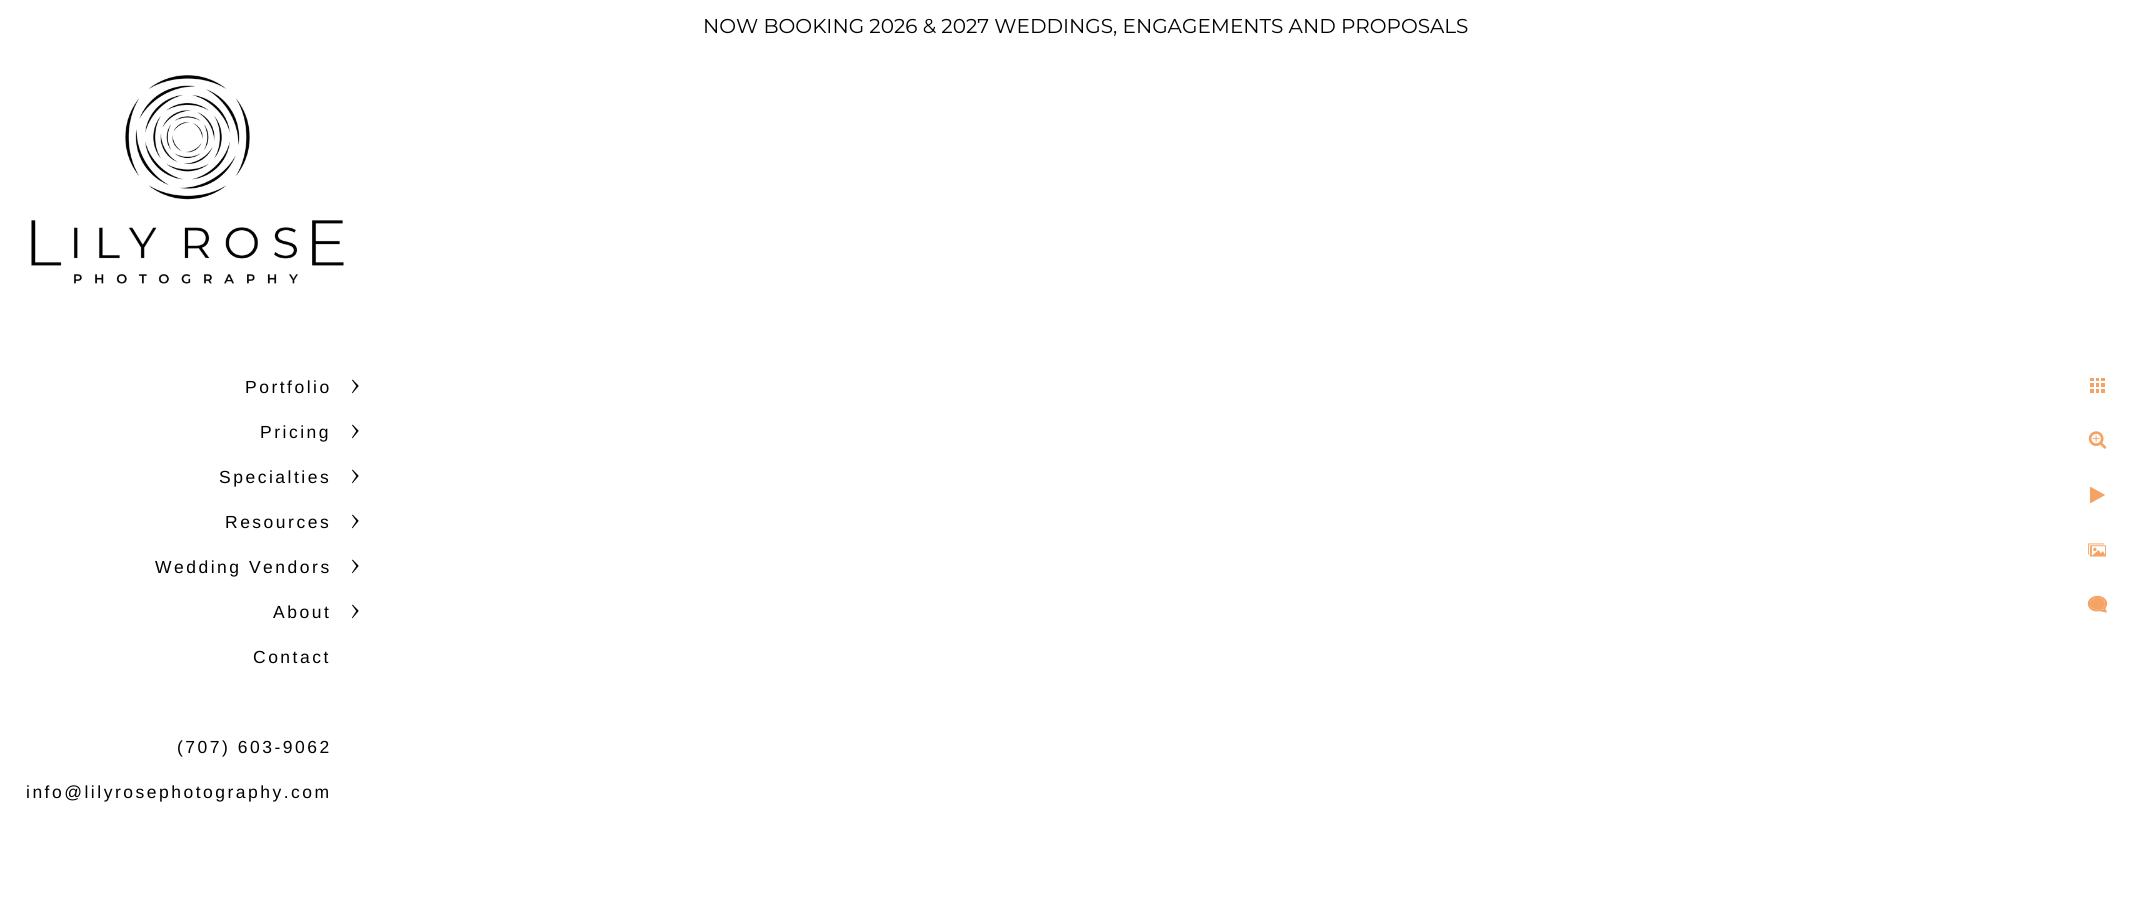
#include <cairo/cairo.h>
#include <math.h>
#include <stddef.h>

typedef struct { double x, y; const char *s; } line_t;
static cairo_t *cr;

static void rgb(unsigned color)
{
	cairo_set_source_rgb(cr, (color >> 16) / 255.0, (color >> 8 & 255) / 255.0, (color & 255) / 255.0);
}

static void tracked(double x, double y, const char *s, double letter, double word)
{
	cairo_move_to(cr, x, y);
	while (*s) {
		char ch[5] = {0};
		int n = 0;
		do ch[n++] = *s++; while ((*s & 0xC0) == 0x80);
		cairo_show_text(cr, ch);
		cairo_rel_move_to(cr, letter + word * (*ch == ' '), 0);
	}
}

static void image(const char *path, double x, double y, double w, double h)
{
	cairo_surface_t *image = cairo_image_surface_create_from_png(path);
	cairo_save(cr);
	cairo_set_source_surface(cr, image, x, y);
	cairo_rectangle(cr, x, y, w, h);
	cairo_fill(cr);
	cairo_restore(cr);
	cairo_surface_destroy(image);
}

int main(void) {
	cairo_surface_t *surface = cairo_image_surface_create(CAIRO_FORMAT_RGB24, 2131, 914);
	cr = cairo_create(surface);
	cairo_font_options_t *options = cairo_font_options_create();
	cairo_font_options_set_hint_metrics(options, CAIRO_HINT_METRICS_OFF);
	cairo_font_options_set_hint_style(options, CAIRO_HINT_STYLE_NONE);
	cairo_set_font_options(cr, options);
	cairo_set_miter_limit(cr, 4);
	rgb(0xffffff);
	cairo_paint(cr);
	image("img/1.png", 31, 75, 313, 209);
	image("img/2.png", 351, 379, 8, 15);
	image("img/2.png", 351, 424, 8, 15);
	image("img/2.png", 351, 469, 8, 15);
	image("img/2.png", 351, 514, 8, 15);
	image("img/2.png", 351, 559, 8, 15);
	image("img/2.png", 351, 604, 8, 15);
	image("img/3.png", 2090, 378, 15, 15);
	image("img/4.png", 2088, 431, 19, 18);
	image("img/5.png", 2090, 486, 15, 18);
	image("img/6.png", 2088, 543, 18, 14);
	image("img/7.png", 2087, 595, 21, 18);
	cairo_select_font_face(cr, "Montserrat Thin", CAIRO_FONT_SLANT_NORMAL, CAIRO_FONT_WEIGHT_NORMAL);
	cairo_set_font_size(cr, 20);
	rgb(0x000000);
	cairo_move_to(cr, 703, 33);
	cairo_show_text(cr, "NOW BOOKING 2026 & 2027 WEDDINGS, ENGAGEMENTS AND PROPOSALS");
	cairo_select_font_face(cr, "Liberation Sans", CAIRO_FONT_SLANT_NORMAL, CAIRO_FONT_WEIGHT_NORMAL);
	cairo_set_font_size(cr, 17.5);
	{
		static const line_t items[] = {
			{245, 393, "Portfolio"},
			{260, 438, "Pricing"},
			{219, 483, "Specialties"},
			{225, 528, "Resources"},
			{155, 573, "Wedding Vendors"},
			{273, 618, "About"},
			{253, 663, "Contact"},
			{177, 753, "(707) 603-9062"},
			{26, 798, "info@lilyrosephotography.com"},
		};
		for (size_t i = 0; i < sizeof items / sizeof *items; i++) {
			tracked(items[i].x, items[i].y, items[i].s, 2.5, 0);
		}
	}
	cairo_surface_write_to_png(surface, "page.png");
	cairo_font_options_destroy(options);
	cairo_destroy(cr);
	cairo_surface_destroy(surface);
	return 0;
}
